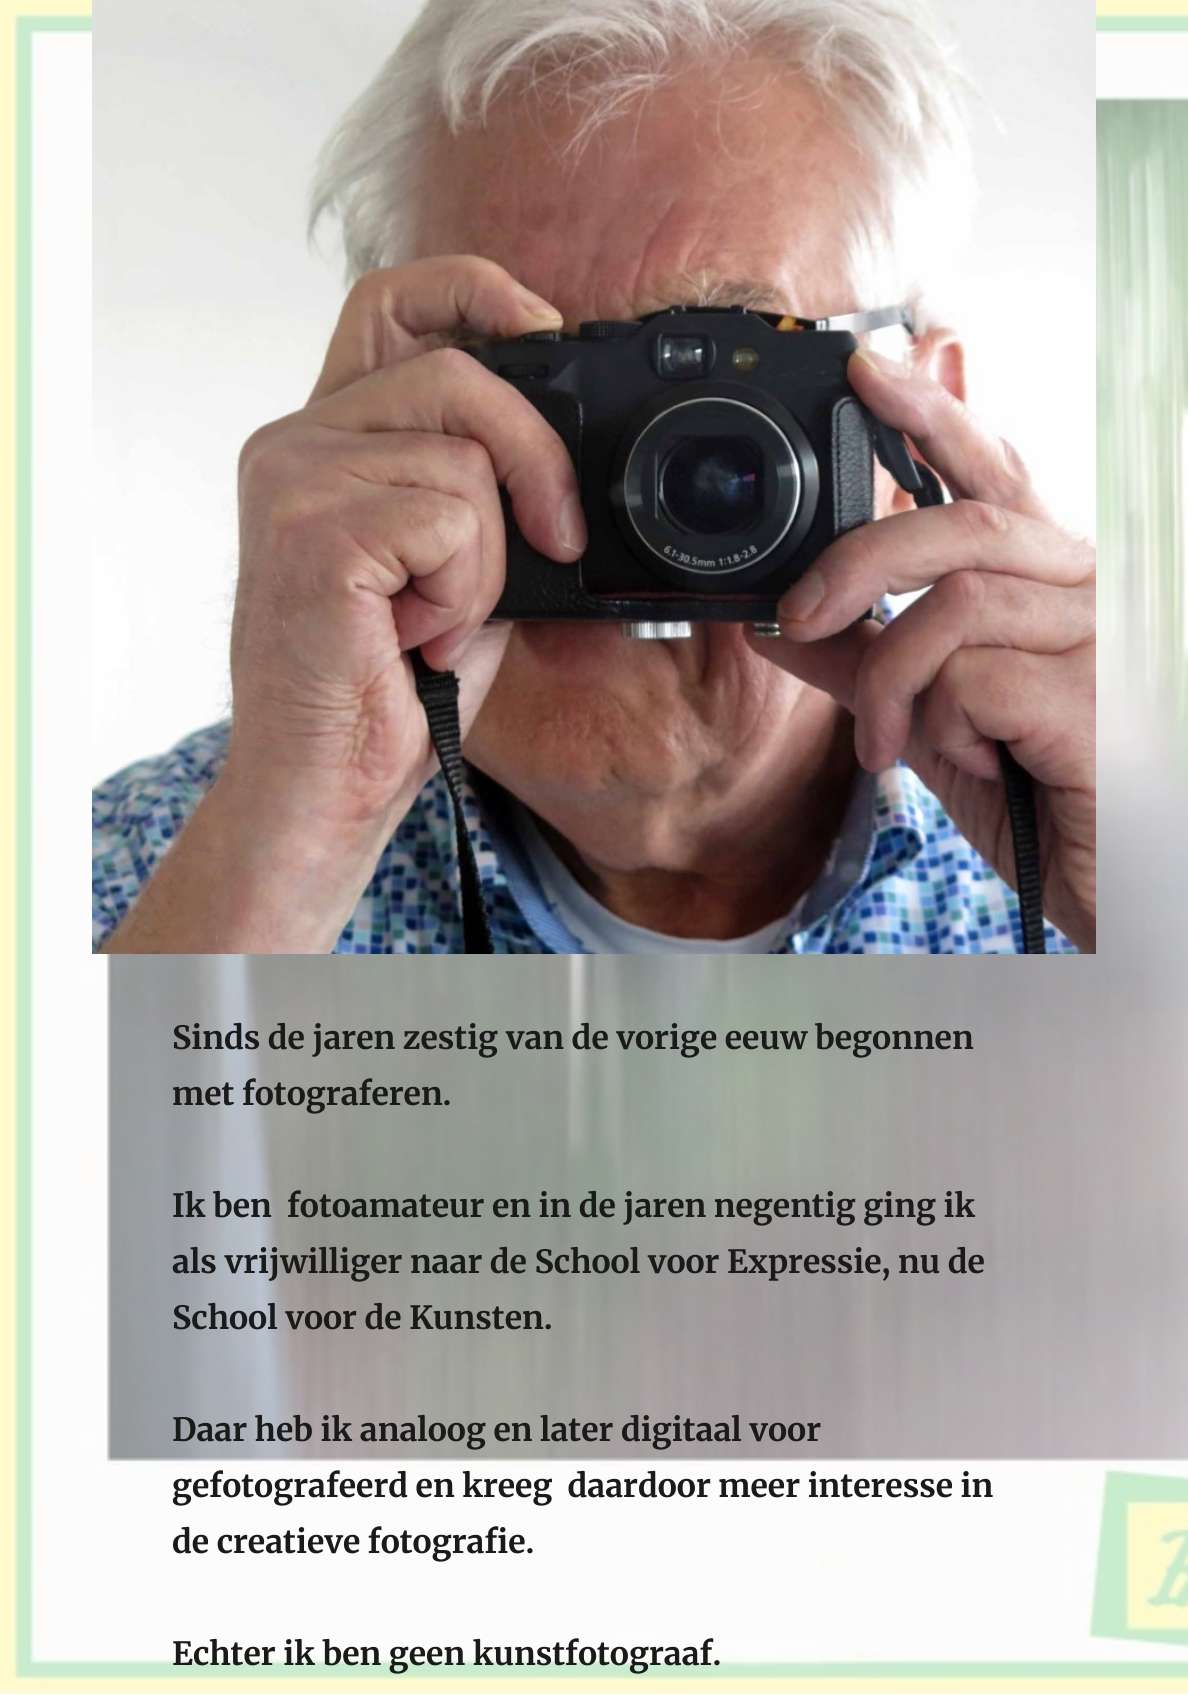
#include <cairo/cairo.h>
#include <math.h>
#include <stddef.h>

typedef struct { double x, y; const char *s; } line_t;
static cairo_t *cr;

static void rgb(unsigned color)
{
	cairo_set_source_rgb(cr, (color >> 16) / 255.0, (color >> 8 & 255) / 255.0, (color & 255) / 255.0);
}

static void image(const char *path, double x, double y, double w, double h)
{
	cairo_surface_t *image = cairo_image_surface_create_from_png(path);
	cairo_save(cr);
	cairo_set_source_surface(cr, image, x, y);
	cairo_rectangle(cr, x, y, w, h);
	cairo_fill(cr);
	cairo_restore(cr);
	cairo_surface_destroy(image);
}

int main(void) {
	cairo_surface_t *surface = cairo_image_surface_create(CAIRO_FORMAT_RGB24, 1188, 1695);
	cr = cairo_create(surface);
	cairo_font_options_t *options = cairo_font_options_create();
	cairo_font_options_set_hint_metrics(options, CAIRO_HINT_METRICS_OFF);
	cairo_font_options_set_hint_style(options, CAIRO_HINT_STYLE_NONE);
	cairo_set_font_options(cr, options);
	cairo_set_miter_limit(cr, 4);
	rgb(0xffffff);
	cairo_paint(cr);
	image("img/1.png", 0, 0, 1188, 1695);
	image("img/2.png", 92, 0, 1004, 954);
	cairo_select_font_face(cr, "Merriweather", CAIRO_FONT_SLANT_NORMAL, CAIRO_FONT_WEIGHT_BOLD);
	cairo_set_font_size(cr, 32);
	rgb(0x1a1a1a);
	{
		static const line_t items[] = {
			{172, 1049, "Sinds de jaren zestig van de vorige eeuw begonnen"},
			{172, 1105, "met fotograferen."},
			{172, 1217, "Ik ben  fotoamateur en in de jaren negentig ging ik"},
			{172, 1273, "als vrijwilliger naar de School voor Expressie, nu de"},
			{172, 1329, "School voor de Kunsten."},
			{172, 1441, "Daar heb ik analoog en later digitaal voor"},
			{172, 1497, "gefotografeerd en kreeg  daardoor meer interesse in"},
			{172, 1553, "de creatieve fotografie."},
			{172, 1665, "Echter ik ben geen kunstfotograaf."},
		};
		for (size_t i = 0; i < sizeof items / sizeof *items; i++) {
			cairo_move_to(cr, items[i].x, items[i].y);
			cairo_show_text(cr, items[i].s);
		}
	}
	cairo_surface_write_to_png(surface, "page.png");
	cairo_font_options_destroy(options);
	cairo_destroy(cr);
	cairo_surface_destroy(surface);
	return 0;
}
